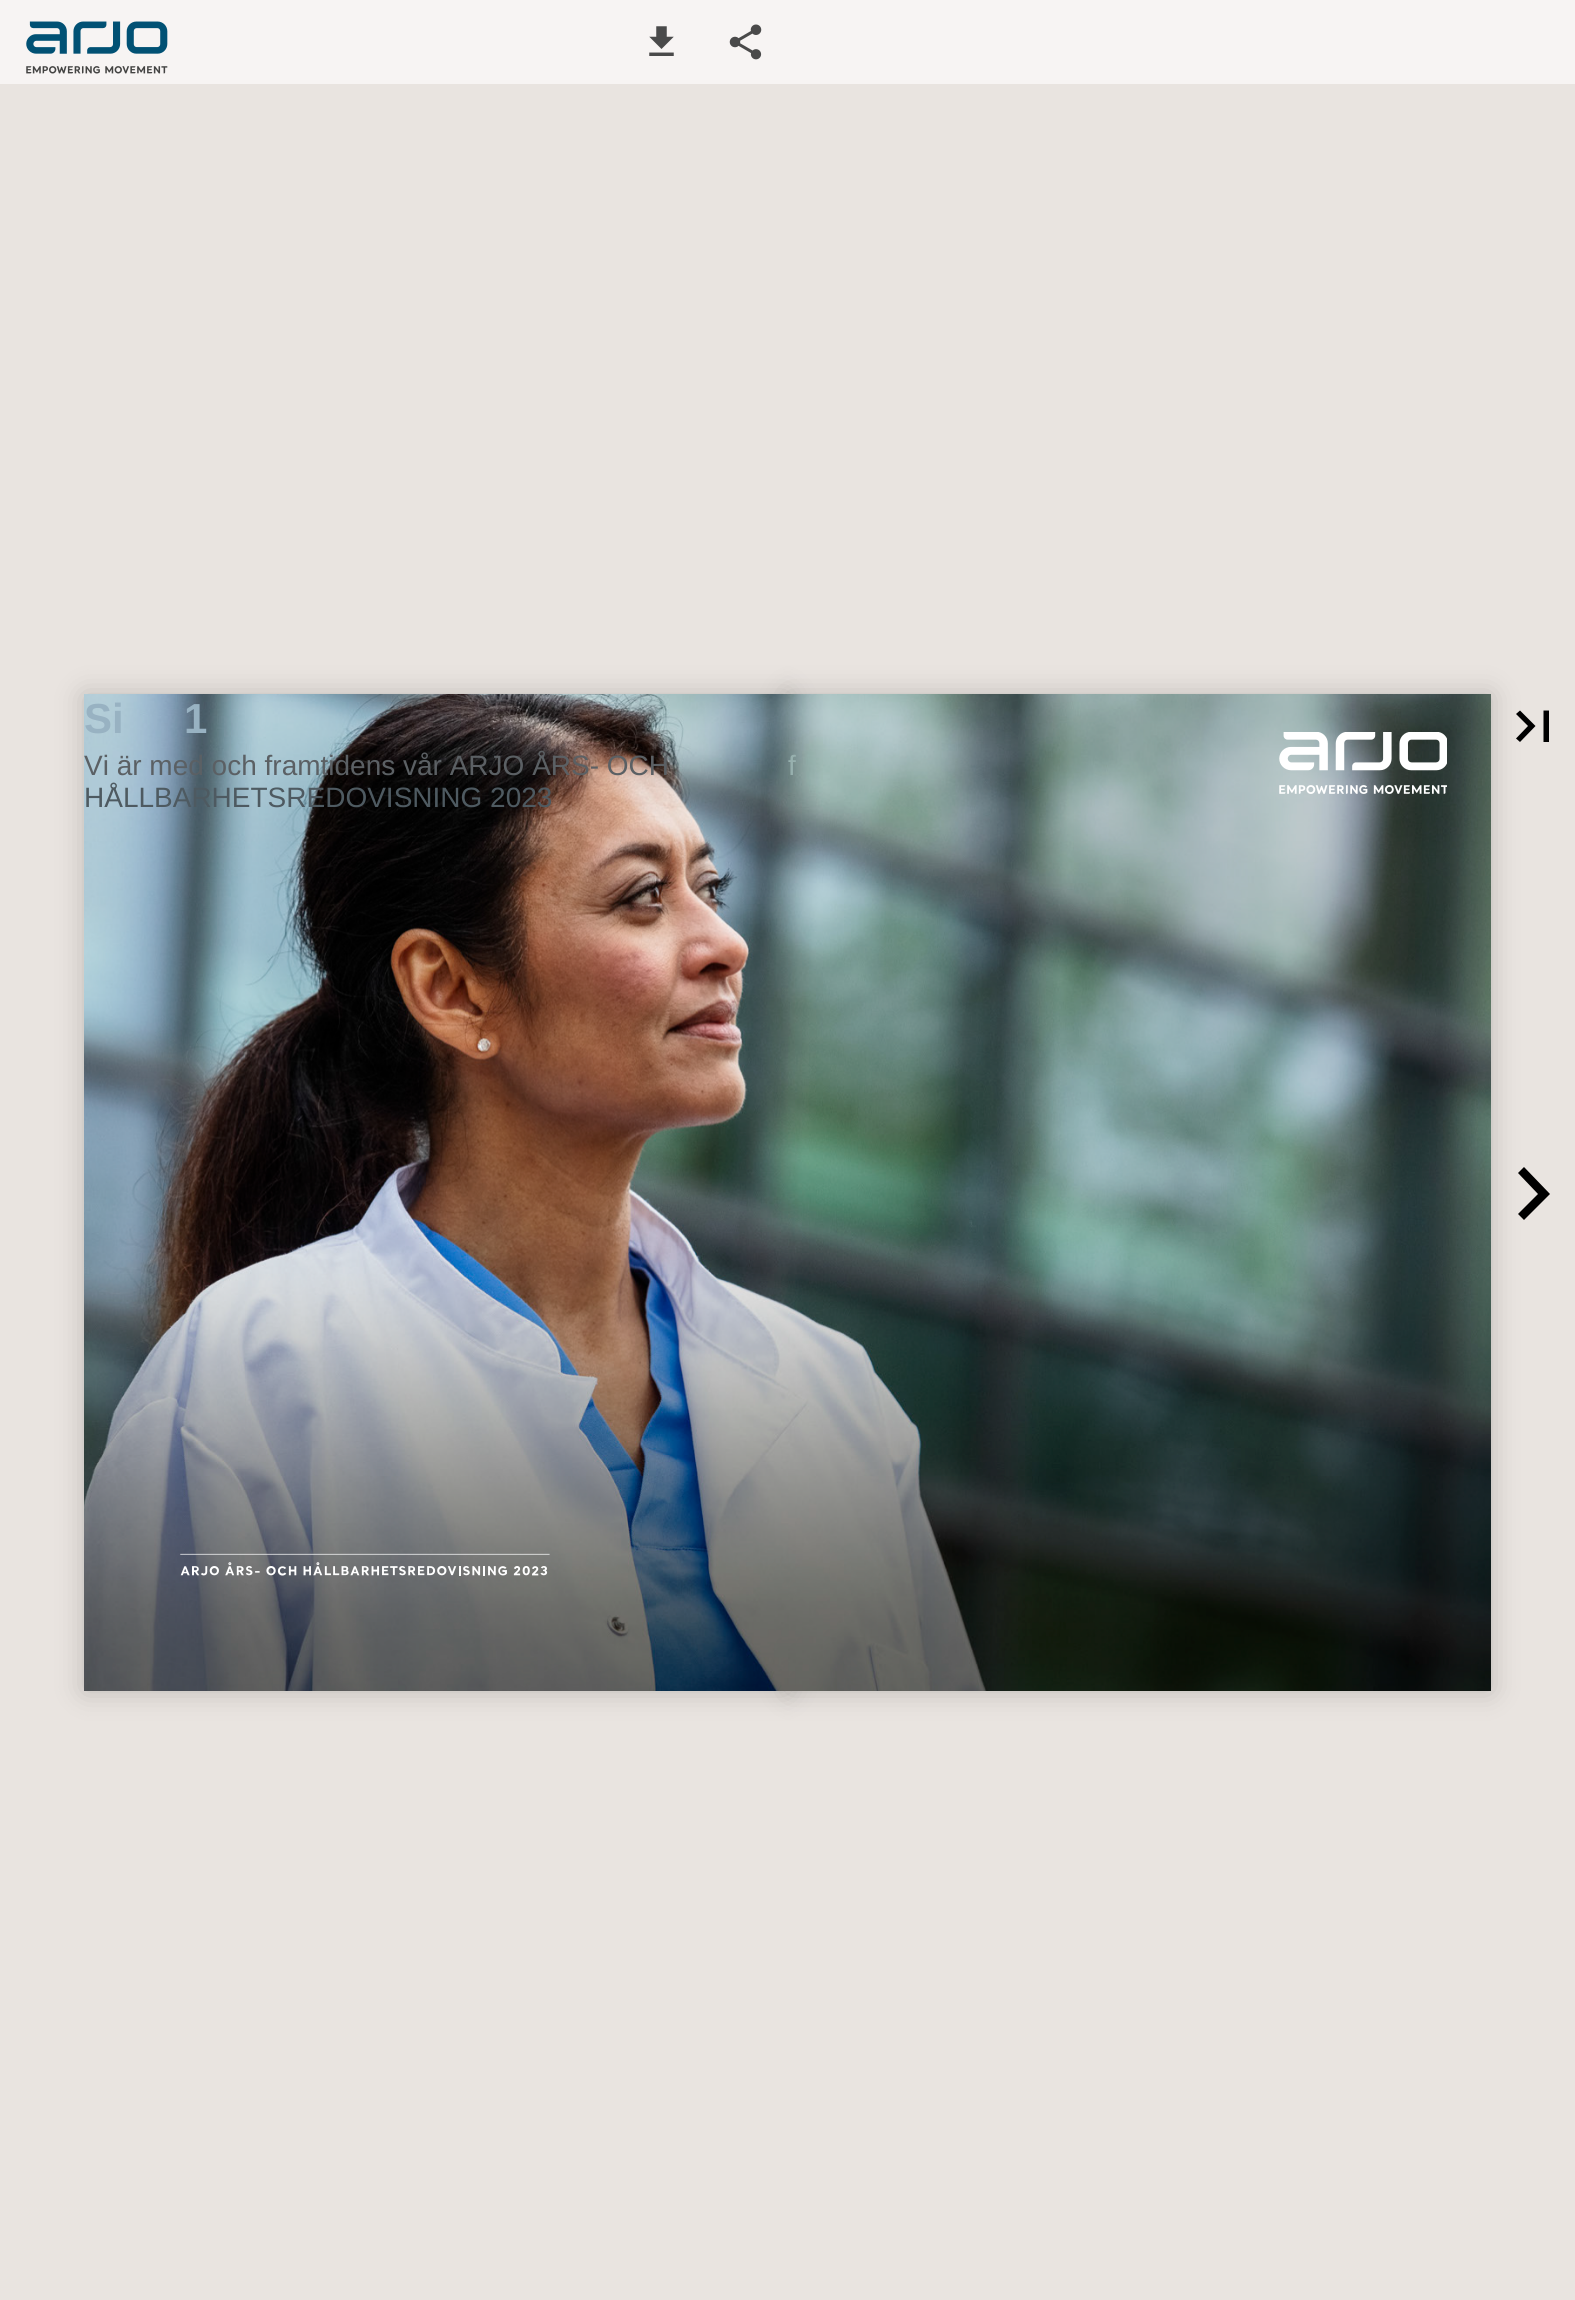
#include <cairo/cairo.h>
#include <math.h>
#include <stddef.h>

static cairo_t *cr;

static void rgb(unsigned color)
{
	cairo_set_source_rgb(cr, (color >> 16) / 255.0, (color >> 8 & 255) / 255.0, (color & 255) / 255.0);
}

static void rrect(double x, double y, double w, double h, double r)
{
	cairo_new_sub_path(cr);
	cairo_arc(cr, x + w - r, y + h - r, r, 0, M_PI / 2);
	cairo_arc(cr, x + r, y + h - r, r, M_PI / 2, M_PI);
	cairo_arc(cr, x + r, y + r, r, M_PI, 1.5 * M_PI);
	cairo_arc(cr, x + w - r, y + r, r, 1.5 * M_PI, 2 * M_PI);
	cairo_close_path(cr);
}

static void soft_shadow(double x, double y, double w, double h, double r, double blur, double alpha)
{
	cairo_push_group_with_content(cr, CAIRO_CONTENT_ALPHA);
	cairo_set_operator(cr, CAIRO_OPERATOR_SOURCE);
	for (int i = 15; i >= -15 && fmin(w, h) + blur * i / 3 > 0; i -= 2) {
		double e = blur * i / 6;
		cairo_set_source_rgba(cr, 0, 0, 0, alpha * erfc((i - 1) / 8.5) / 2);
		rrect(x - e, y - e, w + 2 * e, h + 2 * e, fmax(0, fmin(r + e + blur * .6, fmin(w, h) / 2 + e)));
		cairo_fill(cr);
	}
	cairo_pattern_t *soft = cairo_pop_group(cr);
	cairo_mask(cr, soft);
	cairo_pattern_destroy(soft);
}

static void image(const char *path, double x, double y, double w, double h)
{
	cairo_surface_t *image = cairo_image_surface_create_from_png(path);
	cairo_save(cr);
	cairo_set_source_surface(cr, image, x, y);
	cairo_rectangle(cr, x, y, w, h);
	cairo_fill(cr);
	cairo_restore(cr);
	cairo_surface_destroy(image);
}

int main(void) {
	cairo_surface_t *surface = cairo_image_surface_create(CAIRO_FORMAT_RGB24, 1575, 2300);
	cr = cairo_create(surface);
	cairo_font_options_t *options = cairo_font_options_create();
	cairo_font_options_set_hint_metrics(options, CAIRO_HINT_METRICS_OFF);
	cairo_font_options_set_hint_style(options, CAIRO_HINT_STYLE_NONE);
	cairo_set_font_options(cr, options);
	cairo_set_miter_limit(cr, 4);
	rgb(0xf7f4f3);
	cairo_paint(cr);
	image("img/1.png", 26, 21, 142, 53);
	image("img/2.png", 649, 26, 25, 30);
	image("img/3.png", 729, 24, 33, 36);
	rgb(0xe9e4e0);
	cairo_rectangle(cr, 0, 84, 1575, 2216);
	cairo_fill(cr);
	rgb(0x000000);
	soft_shadow(84, 695, 704, 996, 0, 14, 0.2);
	soft_shadow(788, 695, 703, 996, 0, 14, 0.2);
	image("img/4.png", 84, 694, 1407, 997);
	image("img/5.png", 1279, 732, 168, 62);
	image("img/6.png", 180, 1553, 370, 23);
	rgb(0x000000);
	cairo_new_path(cr);
	cairo_move_to(cr, 1516, 714);
	cairo_line_to(cr, 1528, 726);
	cairo_line_to(cr, 1516, 738.5);
	cairo_line_to(cr, 1520, 742);
	cairo_line_to(cr, 1535.5, 726);
	cairo_line_to(cr, 1520, 710.5);
	cairo_close_path(cr);
	cairo_move_to(cr, 1543.5, 710.5);
	cairo_line_to(cr, 1549, 710.5);
	cairo_line_to(cr, 1549, 742);
	cairo_line_to(cr, 1543.5, 742);
	cairo_close_path(cr);
	cairo_fill(cr);
	cairo_new_path(cr);
	cairo_move_to(cr, 1524, 1167);
	cairo_line_to(cr, 1518, 1173);
	cairo_line_to(cr, 1538, 1194);
	cairo_line_to(cr, 1518, 1214);
	cairo_line_to(cr, 1524, 1220);
	cairo_line_to(cr, 1550, 1194);
	cairo_close_path(cr);
	cairo_fill(cr);
	cairo_select_font_face(cr, "Liberation Sans", CAIRO_FONT_SLANT_NORMAL, CAIRO_FONT_WEIGHT_BOLD);
	cairo_set_font_size(cr, 42);
	rgb(0x98b2c2);
	cairo_move_to(cr, 84, 733);
	cairo_show_text(cr, "Si");
	cairo_move_to(cr, 184, 733);
	cairo_show_text(cr, "1");
	cairo_select_font_face(cr, "Liberation Sans", CAIRO_FONT_SLANT_NORMAL, CAIRO_FONT_WEIGHT_NORMAL);
	cairo_set_font_size(cr, 28);
	rgb(0x5b6064);
	cairo_move_to(cr, 84, 775);
	cairo_show_text(cr, "Vi är med och framtidens vår ARJO ÅRS- OCH");
	rgb(0x4e5a61);
	cairo_move_to(cr, 84, 807);
	cairo_show_text(cr, "HÅLLBARHETSREDOVISNING 2023");
	rgb(0x97b0ae);
	cairo_move_to(cr, 788, 775);
	cairo_show_text(cr, "f");
	cairo_surface_write_to_png(surface, "page.png");
	cairo_font_options_destroy(options);
	cairo_destroy(cr);
	cairo_surface_destroy(surface);
	return 0;
}
